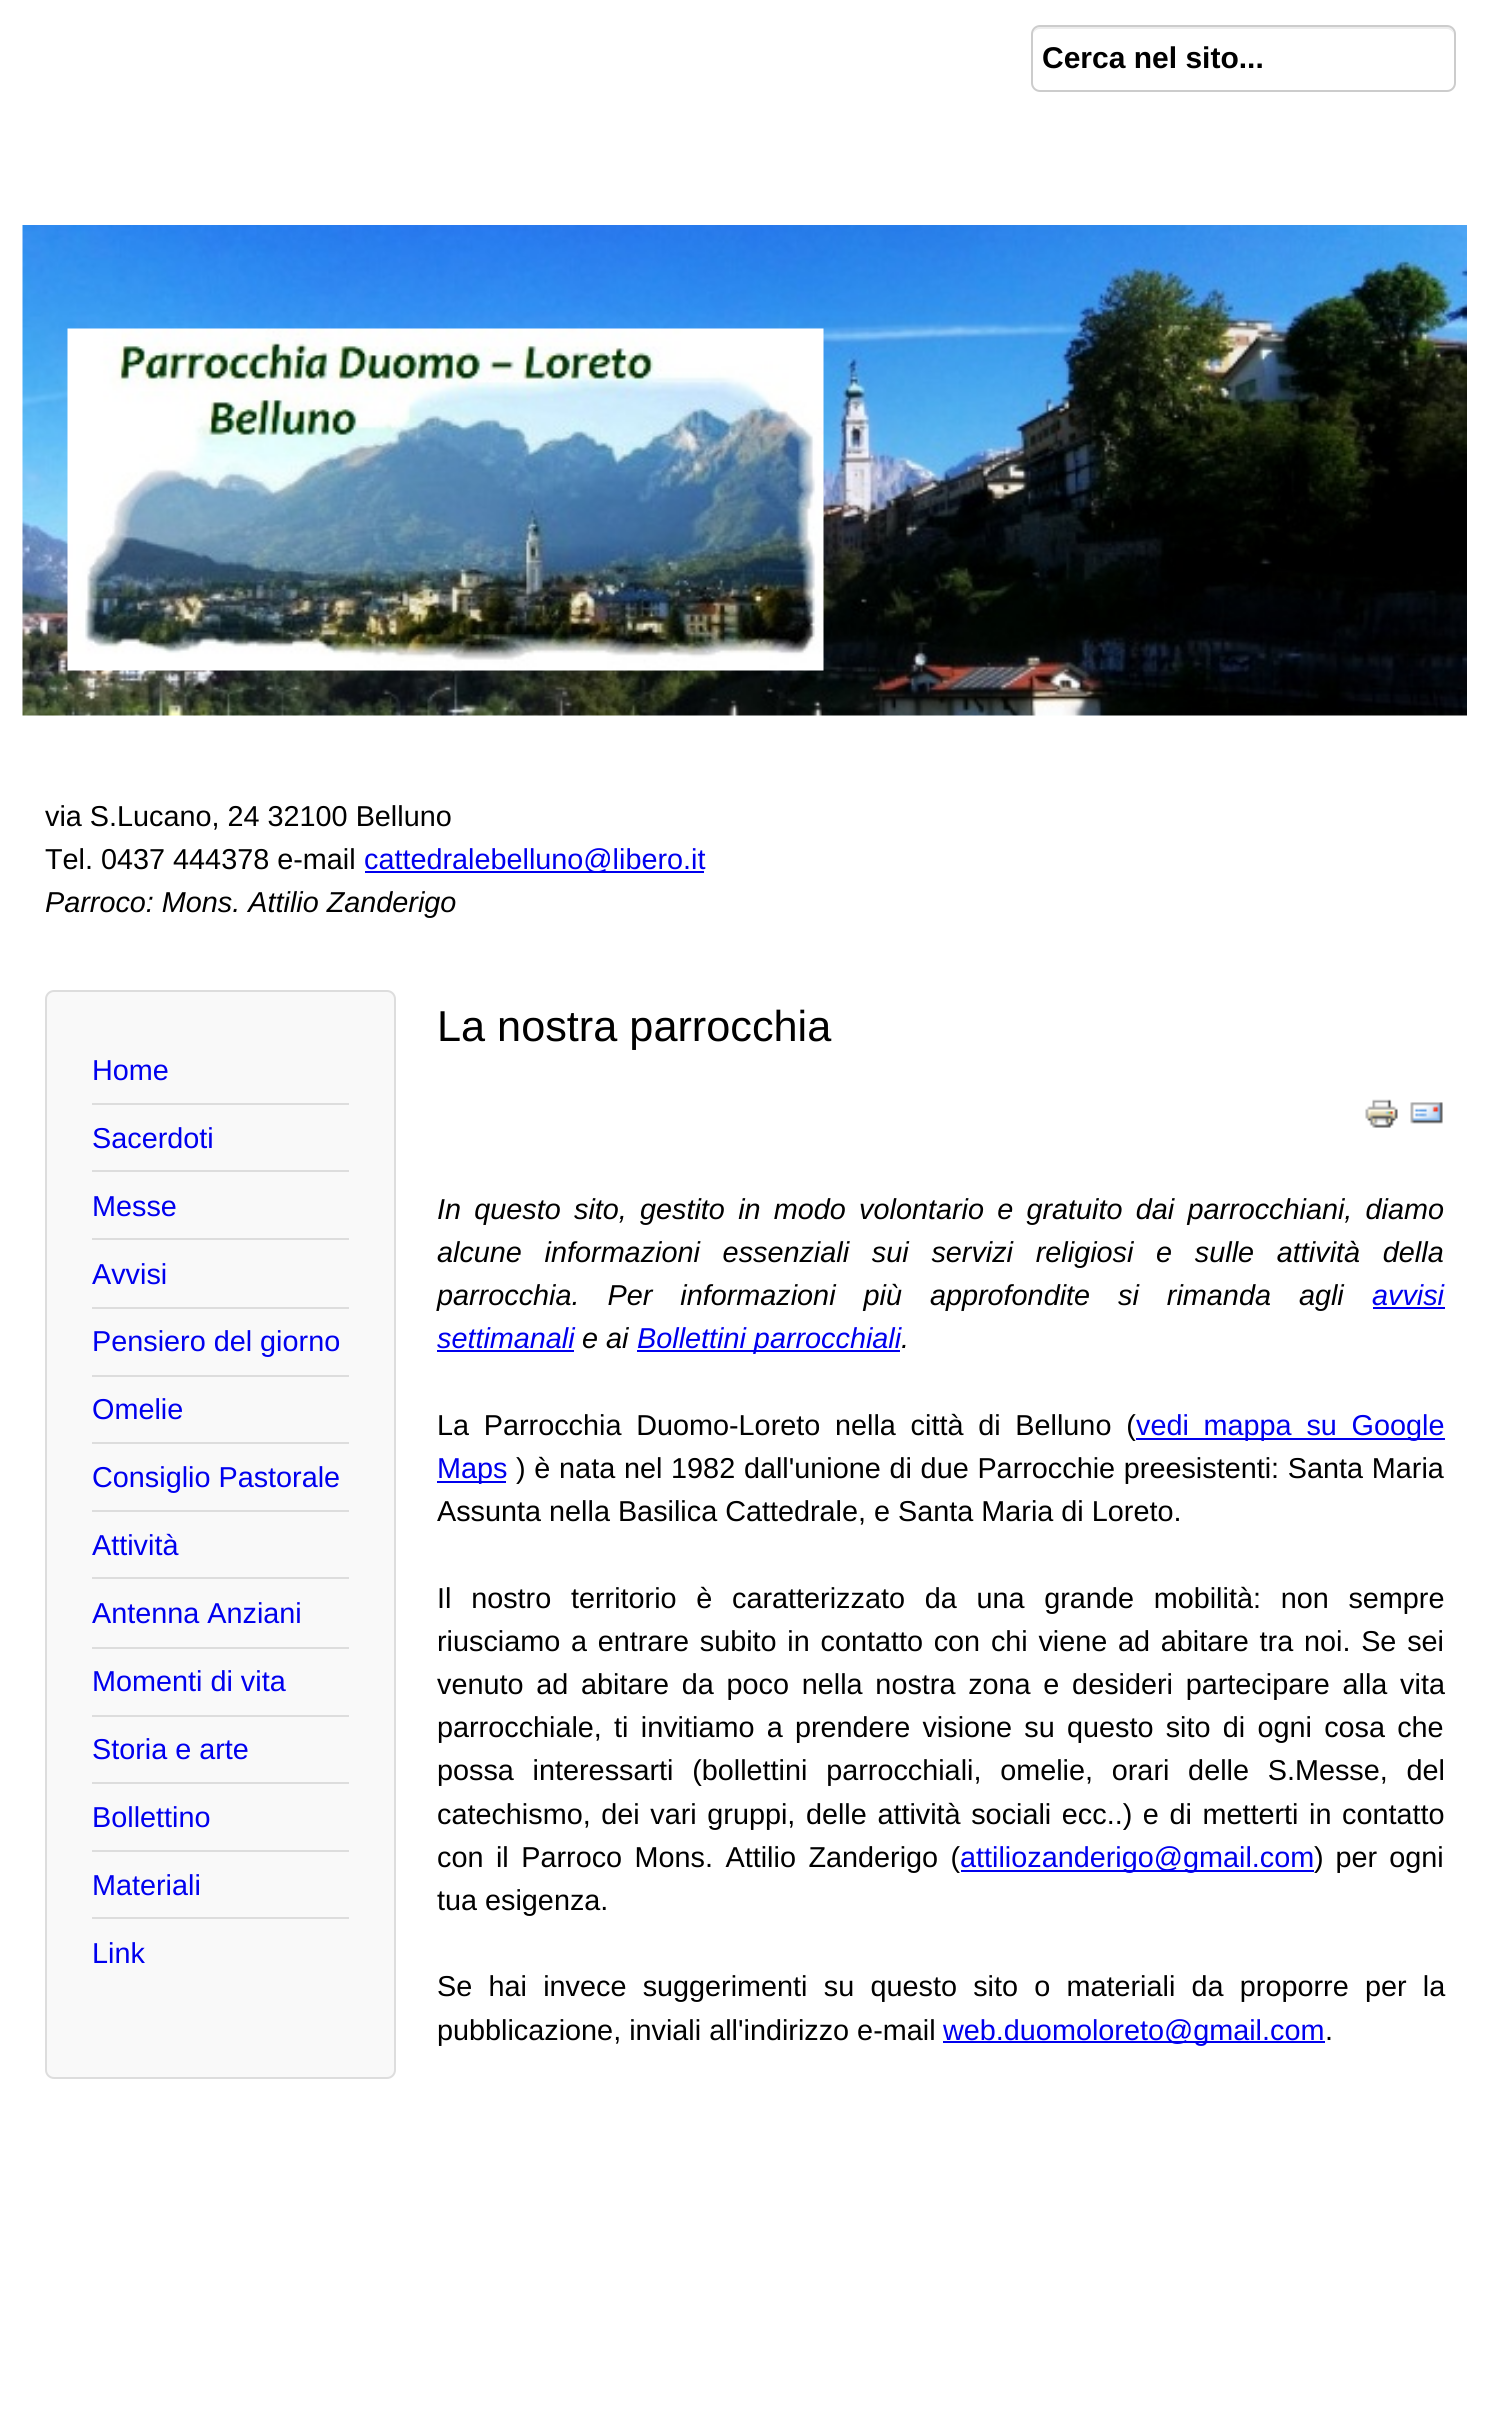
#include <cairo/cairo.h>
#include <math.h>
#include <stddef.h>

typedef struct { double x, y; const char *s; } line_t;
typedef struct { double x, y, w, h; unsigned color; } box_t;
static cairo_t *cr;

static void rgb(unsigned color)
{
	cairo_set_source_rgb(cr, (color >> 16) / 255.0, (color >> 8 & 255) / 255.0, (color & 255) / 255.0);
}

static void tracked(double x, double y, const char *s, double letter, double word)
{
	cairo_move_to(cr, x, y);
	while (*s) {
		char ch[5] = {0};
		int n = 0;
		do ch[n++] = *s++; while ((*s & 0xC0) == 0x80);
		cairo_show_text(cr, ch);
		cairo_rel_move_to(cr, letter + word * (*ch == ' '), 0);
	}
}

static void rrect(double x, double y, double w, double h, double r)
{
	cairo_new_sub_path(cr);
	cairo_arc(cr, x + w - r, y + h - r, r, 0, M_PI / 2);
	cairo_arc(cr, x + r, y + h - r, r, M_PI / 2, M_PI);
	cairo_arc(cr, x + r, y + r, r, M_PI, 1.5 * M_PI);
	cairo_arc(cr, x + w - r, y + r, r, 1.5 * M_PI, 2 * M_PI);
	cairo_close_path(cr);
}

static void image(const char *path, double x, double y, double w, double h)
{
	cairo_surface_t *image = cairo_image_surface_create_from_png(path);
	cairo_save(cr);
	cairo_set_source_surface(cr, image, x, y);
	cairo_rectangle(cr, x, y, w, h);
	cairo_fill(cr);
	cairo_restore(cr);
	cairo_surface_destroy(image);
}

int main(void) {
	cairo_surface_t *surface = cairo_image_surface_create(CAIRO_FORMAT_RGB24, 1489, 2414);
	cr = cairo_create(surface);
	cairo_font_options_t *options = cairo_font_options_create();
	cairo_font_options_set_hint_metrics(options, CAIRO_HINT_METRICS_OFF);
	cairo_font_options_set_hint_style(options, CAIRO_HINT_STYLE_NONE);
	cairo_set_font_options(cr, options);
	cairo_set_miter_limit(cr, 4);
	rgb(0xffffff);
	cairo_paint(cr);
	rgb(0xececec);
	cairo_new_path(cr);
	cairo_move_to(cr, 1040, 29);
	cairo_line_to(cr, 1447, 29);
	cairo_curve_to(cr, 1450, 29, 1454, 32, 1454, 36);
	cairo_curve_to(cr, 1454, 32, 1452, 27, 1447, 27);
	cairo_line_to(cr, 1040, 27);
	cairo_curve_to(cr, 1035, 27, 1033, 32, 1033, 36);
	cairo_curve_to(cr, 1033, 32, 1036, 29, 1040, 29);
	cairo_close_path(cr);
	cairo_fill(cr);
	rrect(1032, 26, 423, 65, 8);
	rgb(0xcccccc);
	cairo_stroke(cr);
	image("img/1.png", 22, 225, 1445, 491);
	image("img/2.png", 67, 328, 757, 343);
	rgb(0x0000ee);
	cairo_rectangle(cr, 365, 871, 339, 2);
	cairo_fill(cr);
	rgb(0xf9f9f9);
	rrect(46, 991, 349, 1087, 8);
	cairo_fill_preserve(cr);
	rgb(0xdddddd);
	cairo_stroke(cr);
	{
		static const box_t items[] = {
			{92, 1103, 257, 2, 0xdddddd},
			{92, 1170, 257, 2, 0xdddddd},
			{92, 1238, 257, 2, 0xdddddd},
			{92, 1307, 257, 2, 0xdddddd},
			{92, 1375, 257, 2, 0xdddddd},
			{92, 1442, 257, 2, 0xdddddd},
			{92, 1510, 257, 2, 0xdddddd},
			{92, 1577, 257, 2, 0xdddddd},
			{92, 1647, 257, 2, 0xdddddd},
			{92, 1715, 257, 2, 0xdddddd},
			{92, 1782, 257, 2, 0xdddddd},
			{92, 1850, 257, 2, 0xdddddd},
			{92, 1917, 257, 2, 0xdddddd},
		};
		for (size_t i = 0; i < sizeof items / sizeof *items; i++) {
			rgb(items[i].color);
			cairo_rectangle(cr, items[i].x, items[i].y, items[i].w, items[i].h);
			cairo_fill(cr);
		}
	}
	image("img/3.png", 1365, 1099, 33, 29);
	image("img/4.png", 1410, 1102, 33, 22);
	{
		static const box_t items[] = {
			{1373, 1307, 72, 2, 0x0000ee},
			{437, 1350, 137, 2, 0x0000ee},
			{637, 1350, 263, 2, 0x0000ee},
			{1136, 1438, 309, 2, 0x0000ee},
			{437, 1481, 69, 2, 0x0000ee},
			{961, 1870, 353, 2, 0x0000ee},
			{943, 2041, 382, 2, 0x0000ee},
		};
		for (size_t i = 0; i < sizeof items / sizeof *items; i++) {
			rgb(items[i].color);
			cairo_rectangle(cr, items[i].x, items[i].y, items[i].w, items[i].h);
			cairo_fill(cr);
		}
	}
	cairo_select_font_face(cr, "Liberation Sans", CAIRO_FONT_SLANT_NORMAL, CAIRO_FONT_WEIGHT_BOLD);
	cairo_set_font_size(cr, 30);
	rgb(0x000000);
	cairo_move_to(cr, 1042, 68);
	cairo_show_text(cr, "Cerca nel sito...");
	cairo_select_font_face(cr, "Liberation Sans", CAIRO_FONT_SLANT_NORMAL, CAIRO_FONT_WEIGHT_NORMAL);
	cairo_set_font_size(cr, 28.8);
	cairo_move_to(cr, 45, 826);
	cairo_show_text(cr, "via S.Lucano, 24 32100 Belluno");
	cairo_move_to(cr, 45, 869);
	cairo_show_text(cr, "Tel. 0437 444378 e-mail");
	rgb(0x0000ee);
	cairo_move_to(cr, 364, 869);
	cairo_show_text(cr, "cattedralebelluno@libero.it");
	cairo_select_font_face(cr, "Liberation Sans", CAIRO_FONT_SLANT_ITALIC, CAIRO_FONT_WEIGHT_NORMAL);
	rgb(0x000000);
	cairo_move_to(cr, 45, 912);
	cairo_show_text(cr, "Parroco: Mons. Attilio Zanderigo");
	cairo_select_font_face(cr, "Liberation Sans", CAIRO_FONT_SLANT_NORMAL, CAIRO_FONT_WEIGHT_NORMAL);
	rgb(0x0000ee);
	{
		static const line_t items[] = {
			{92, 1080, "Home"},
			{92, 1148, "Sacerdoti"},
			{92, 1216, "Messe"},
			{92, 1284, "Avvisi"},
			{92, 1351, "Pensiero del giorno"},
			{92, 1419, "Omelie"},
			{92, 1487, "Consiglio Pastorale"},
			{92, 1555, "Attività"},
			{92, 1623, "Antenna Anziani"},
			{92, 1691, "Momenti di vita"},
			{92, 1759, "Storia e arte"},
			{92, 1827, "Bollettino"},
			{92, 1895, "Materiali"},
			{92, 1963, "Link"},
		};
		for (size_t i = 0; i < sizeof items / sizeof *items; i++) {
			cairo_move_to(cr, items[i].x, items[i].y);
			cairo_show_text(cr, items[i].s);
		}
	}
	cairo_set_font_size(cr, 43.25);
	rgb(0x000000);
	cairo_move_to(cr, 437, 1041);
	cairo_show_text(cr, "La nostra parrocchia");
	cairo_select_font_face(cr, "Liberation Sans", CAIRO_FONT_SLANT_ITALIC, CAIRO_FONT_WEIGHT_NORMAL);
	cairo_set_font_size(cr, 28.8);
	tracked(437, 1219, "In questo sito, gestito in modo volontario e gratuito dai parrocchiani, diamo", 0, 5.25);
	tracked(437, 1262, "alcune informazioni essenziali sui servizi religiosi e sulle attività della", 0, 14.75);
	tracked(437, 1305, "parrocchia. Per informazioni più approfondite si rimanda agli", 0, 20);
	rgb(0x0000ee);
	cairo_move_to(cr, 1372, 1305);
	cairo_show_text(cr, "avvisi");
	cairo_move_to(cr, 437, 1348);
	cairo_show_text(cr, "settimanali");
	rgb(0x000000);
	cairo_move_to(cr, 582, 1348);
	cairo_show_text(cr, "e ai");
	rgb(0x0000ee);
	cairo_move_to(cr, 637, 1348);
	cairo_show_text(cr, "Bollettini parrocchiali");
	rgb(0x000000);
	cairo_move_to(cr, 901, 1348);
	cairo_show_text(cr, ".");
	cairo_select_font_face(cr, "Liberation Sans", CAIRO_FONT_SLANT_NORMAL, CAIRO_FONT_WEIGHT_NORMAL);
	tracked(437, 1435, "La Parrocchia Duomo-Loreto nella città di Belluno (", 0, 6.75);
	rgb(0x0000ee);
	tracked(1136, 1435, "vedi mappa su Google", 0, 6.75);
	cairo_move_to(cr, 437, 1478);
	cairo_show_text(cr, "Maps");
	rgb(0x000000);
	tracked(516, 1478, ") è nata nel 1982 dall'unione di due Parrocchie preesistenti: Santa Maria", 0, 0.75);
	cairo_move_to(cr, 437, 1521);
	cairo_show_text(cr, "Assunta nella Basilica Cattedrale, e Santa Maria di Loreto.");
	tracked(437, 1608, "Il nostro territorio è caratterizzato da una grande mobilità: non sempre", 0, 11.75);
	tracked(437, 1651, "riusciamo a entrare subito in contatto con chi viene ad abitare tra noi. Se sei", 0, 2.75);
	tracked(437, 1694, "venuto ad abitare da poco nella nostra zona e desideri partecipare alla vita", 0, 4.75);
	tracked(437, 1737, "parrocchiale, ti invitiamo a prendere visione su questo sito di ogni cosa che", 0, 4.25);
	tracked(437, 1780, "possa interessarti (bollettini parrocchiali, omelie, orari delle S.Messe, del", 0, 10.75);
	tracked(437, 1824, "catechismo, dei vari gruppi, delle attività sociali ecc..) e di metterti in contatto", 0, 2.6);
	tracked(437, 1867, "con il Parroco Mons. Attilio Zanderigo (", 0, 4.5);
	rgb(0x0000ee);
	cairo_move_to(cr, 960, 1867);
	cairo_show_text(cr, "attiliozanderigo@gmail.com");
	rgb(0x000000);
	tracked(1314, 1867, ") per ogni", 0, 4);
	cairo_move_to(cr, 437, 1910);
	cairo_show_text(cr, "tua esigenza.");
	tracked(437, 1996, "Se hai invece suggerimenti su questo sito o materiali da proporre per la", 0, 8.25);
	cairo_move_to(cr, 437, 2040);
	cairo_show_text(cr, "pubblicazione, inviali all'indirizzo e-mail");
	rgb(0x0000ee);
	cairo_move_to(cr, 943, 2040);
	cairo_show_text(cr, "web.duomoloreto@gmail.com");
	rgb(0x000000);
	cairo_move_to(cr, 1325, 2040);
	cairo_show_text(cr, ".");
	cairo_surface_write_to_png(surface, "page.png");
	cairo_font_options_destroy(options);
	cairo_destroy(cr);
	cairo_surface_destroy(surface);
	return 0;
}
